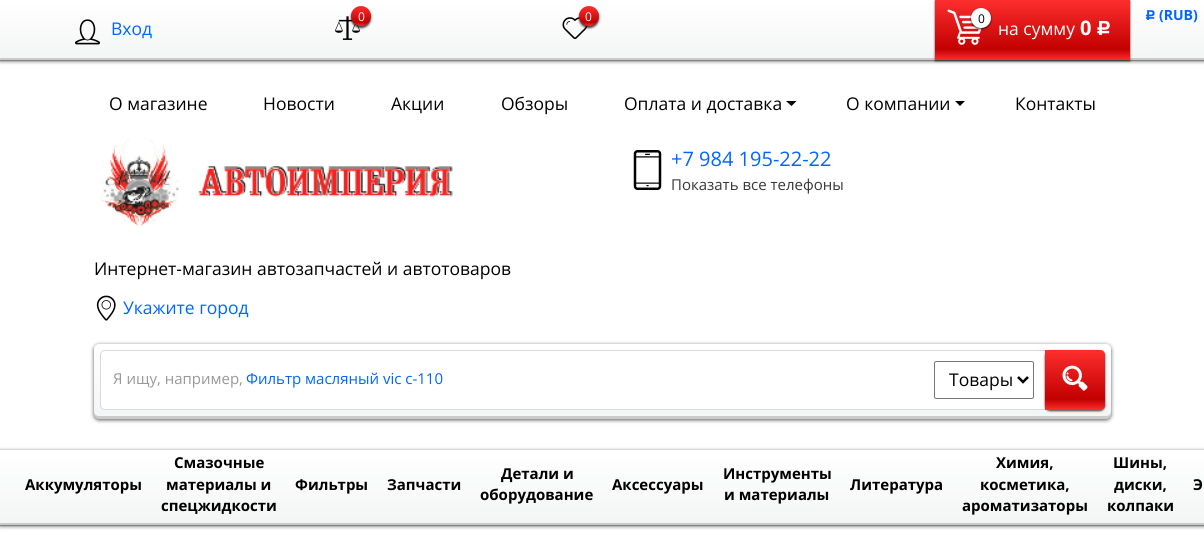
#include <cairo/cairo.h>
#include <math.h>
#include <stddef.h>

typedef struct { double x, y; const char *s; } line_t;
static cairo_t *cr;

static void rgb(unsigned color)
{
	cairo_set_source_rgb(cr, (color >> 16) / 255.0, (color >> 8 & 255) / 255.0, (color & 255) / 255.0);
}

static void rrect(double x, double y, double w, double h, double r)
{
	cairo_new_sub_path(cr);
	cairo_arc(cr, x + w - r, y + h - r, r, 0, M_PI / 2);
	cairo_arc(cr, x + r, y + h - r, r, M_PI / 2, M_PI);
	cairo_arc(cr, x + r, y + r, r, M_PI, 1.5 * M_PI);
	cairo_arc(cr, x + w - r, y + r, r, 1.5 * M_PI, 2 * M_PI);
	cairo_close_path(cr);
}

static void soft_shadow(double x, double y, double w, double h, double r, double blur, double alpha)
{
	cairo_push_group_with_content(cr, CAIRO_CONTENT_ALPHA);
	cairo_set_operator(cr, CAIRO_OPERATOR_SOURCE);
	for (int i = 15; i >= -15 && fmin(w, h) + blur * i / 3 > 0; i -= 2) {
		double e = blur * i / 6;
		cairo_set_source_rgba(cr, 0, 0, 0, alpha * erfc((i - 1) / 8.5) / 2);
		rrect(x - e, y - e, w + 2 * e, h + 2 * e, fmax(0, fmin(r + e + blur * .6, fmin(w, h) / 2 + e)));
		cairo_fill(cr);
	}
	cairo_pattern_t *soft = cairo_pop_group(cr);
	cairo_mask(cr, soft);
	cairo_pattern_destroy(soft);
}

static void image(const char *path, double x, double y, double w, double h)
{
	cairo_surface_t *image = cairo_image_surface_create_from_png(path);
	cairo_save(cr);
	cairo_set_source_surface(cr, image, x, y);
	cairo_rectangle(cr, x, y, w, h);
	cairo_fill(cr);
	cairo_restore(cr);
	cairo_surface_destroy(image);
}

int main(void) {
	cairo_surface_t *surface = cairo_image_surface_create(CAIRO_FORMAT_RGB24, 1204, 547);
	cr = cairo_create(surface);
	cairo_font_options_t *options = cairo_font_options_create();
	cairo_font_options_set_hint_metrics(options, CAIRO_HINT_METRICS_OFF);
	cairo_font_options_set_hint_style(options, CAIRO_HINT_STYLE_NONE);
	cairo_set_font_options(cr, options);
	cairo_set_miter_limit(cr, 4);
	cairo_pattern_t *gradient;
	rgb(0xffffff);
	cairo_paint(cr);
	rgb(0x000000);
	soft_shadow(0, 1, 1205, 60, 0, 2, 0.66);
	gradient = cairo_pattern_create_linear(603, 0, 603, 60);
	cairo_pattern_add_color_stop_rgba(gradient, 0, 1, 1, 1, 1);
	cairo_pattern_add_color_stop_rgba(gradient, 1, 0.953, 0.961, 0.957, 1);
	cairo_set_source(cr, gradient);
	cairo_pattern_destroy(gradient);
	cairo_rectangle(cr, 0, 0, 1204, 60);
	cairo_fill(cr);
	cairo_set_source_rgba(cr, 0, 0, 0, 0.17);
	cairo_rectangle(cr, 0, 58, 1204, 3);
	cairo_fill(cr);
	image("img/1.png", 75, 19, 25, 26);
	image("img/2.png", 335, 16, 25, 24);
	rgb(0x141311);
	soft_shadow(351, 8, 20, 20, 10, 1, 0.8);
	gradient = cairo_pattern_create_linear(361, 26, 361, 6.2);
	cairo_pattern_add_color_stop_rgba(gradient, 0, 0.996, 0.18, 0.18, 1);
	cairo_pattern_add_color_stop_rgba(gradient, 0.18, 0.761, 0, 0, 1);
	cairo_pattern_add_color_stop_rgba(gradient, 1, 0.996, 0.18, 0.18, 1);
	cairo_set_source(cr, gradient);
	cairo_pattern_destroy(gradient);
	cairo_arc(cr, 361, 16, 10, 0, 2 * M_PI);
	cairo_fill(cr);
	image("img/3.png", 562, 17, 26, 22);
	rgb(0x141311);
	soft_shadow(579, 8, 20, 20, 10, 1, 0.8);
	gradient = cairo_pattern_create_linear(589, 26, 589, 6.2);
	cairo_pattern_add_color_stop_rgba(gradient, 0, 0.996, 0.18, 0.18, 1);
	cairo_pattern_add_color_stop_rgba(gradient, 0.18, 0.761, 0, 0, 1);
	cairo_pattern_add_color_stop_rgba(gradient, 1, 0.996, 0.18, 0.18, 1);
	cairo_set_source(cr, gradient);
	cairo_pattern_destroy(gradient);
	cairo_arc(cr, 589, 16, 10, 0, 2 * M_PI);
	cairo_fill(cr);
	rgb(0x141311);
	soft_shadow(935, 1, 195, 60, 0, 1, 0.8);
	gradient = cairo_pattern_create_linear(1033, 60, 1033, 0);
	cairo_pattern_add_color_stop_rgba(gradient, 0, 0.996, 0.18, 0.18, 1);
	cairo_pattern_add_color_stop_rgba(gradient, 0.18, 0.761, 0, 0, 1);
	cairo_pattern_add_color_stop_rgba(gradient, 1, 0.996, 0.18, 0.18, 1);
	cairo_set_source(cr, gradient);
	cairo_pattern_destroy(gradient);
	cairo_rectangle(cr, 935, 0, 195, 60);
	cairo_fill(cr);
	image("img/4.png", 947, 9, 35, 36);
	rgb(0x000000);
	soft_shadow(971, 9, 20, 20, 10, 1, 0.79);
	rgb(0xffffff);
	cairo_arc(cr, 981, 18, 10, 0, 2 * M_PI);
	cairo_fill(cr);
	rgb(0x000000);
	cairo_new_path(cr);
	cairo_move_to(cr, 786, 101);
	cairo_line_to(cr, 796.5, 101);
	cairo_line_to(cr, 791.5, 106);
	cairo_close_path(cr);
	cairo_fill(cr);
	cairo_new_path(cr);
	cairo_move_to(cr, 955, 101);
	cairo_line_to(cr, 965, 101);
	cairo_line_to(cr, 960, 106);
	cairo_close_path(cr);
	cairo_fill(cr);
	image("img/5.png", 633, 150, 29, 40);
	image("img/6.png", 98, 139, 355, 88);
	image("img/7.png", 96, 295, 20, 26);
	rgb(0x000000);
	soft_shadow(94, 345, 1017, 75, 5, 2, 0.66);
	gradient = cairo_pattern_create_linear(603, 344, 603, 419);
	cairo_pattern_add_color_stop_rgba(gradient, 0, 1, 1, 1, 1);
	cairo_pattern_add_color_stop_rgba(gradient, 1, 0.953, 0.961, 0.957, 1);
	cairo_set_source(cr, gradient);
	cairo_pattern_destroy(gradient);
	rrect(94, 344, 1017, 75, 5);
	cairo_fill(cr);
	cairo_set_source_rgba(cr, 0, 0, 0, 0.17);
	cairo_new_path(cr);
	cairo_move_to(cr, 94, 411);
	cairo_curve_to(cr, 94, 415, 94, 419, 99, 419);
	cairo_line_to(cr, 1106, 419);
	cairo_curve_to(cr, 1111, 419, 1111, 415, 1111, 411);
	cairo_curve_to(cr, 1111, 414, 1109, 416, 1106, 416);
	cairo_line_to(cr, 99, 416);
	cairo_curve_to(cr, 96, 416, 94, 414, 94, 411);
	cairo_close_path(cr);
	cairo_fill(cr);
	rgb(0xffffff);
	rrect(100.5, 350.5, 1004, 59, 4.5);
	cairo_fill_preserve(cr);
	rgb(0xd9d7e5);
	cairo_set_line_width(cr, 1);
	cairo_stroke(cr);
	rrect(934.5, 361.5, 99, 37, 2);
	rgb(0x767676);
	cairo_stroke(cr);
	cairo_new_path(cr);
	cairo_move_to(cr, 1018, 377);
	cairo_line_to(cr, 1023, 382);
	cairo_line_to(cr, 1028, 377);
	rgb(0x000000);
	cairo_set_line_width(cr, 2.5);
	cairo_stroke(cr);
	rgb(0x141311);
	soft_shadow(1045, 351, 60, 60, 5, 1, 0.8);
	gradient = cairo_pattern_create_linear(1075, 410, 1075, 350);
	cairo_pattern_add_color_stop_rgba(gradient, 0, 0.996, 0.18, 0.18, 1);
	cairo_pattern_add_color_stop_rgba(gradient, 0.18, 0.761, 0, 0, 1);
	cairo_pattern_add_color_stop_rgba(gradient, 1, 0.996, 0.18, 0.18, 1);
	cairo_set_source(cr, gradient);
	cairo_pattern_destroy(gradient);
	cairo_new_path(cr);
	cairo_move_to(cr, 1045, 350);
	cairo_line_to(cr, 1100, 350);
	cairo_curve_to(cr, 1103, 350, 1105, 352, 1105, 355);
	cairo_line_to(cr, 1105, 405);
	cairo_curve_to(cr, 1105, 408, 1103, 410, 1100, 410);
	cairo_line_to(cr, 1045, 410);
	cairo_close_path(cr);
	cairo_fill(cr);
	image("img/8.png", 1062, 365, 26, 26);
	rgb(0x000000);
	soft_shadow(0, 451, 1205, 75, 0, 2, 0.66);
	gradient = cairo_pattern_create_linear(603, 450, 603, 525);
	cairo_pattern_add_color_stop_rgba(gradient, 0, 1, 1, 1, 1);
	cairo_pattern_add_color_stop_rgba(gradient, 1, 0.953, 0.961, 0.957, 1);
	cairo_set_source(cr, gradient);
	cairo_pattern_destroy(gradient);
	cairo_rectangle(cr, 0, 450, 1204, 75);
	cairo_fill(cr);
	cairo_set_source_rgba(cr, 0, 0, 0, 0.17);
	cairo_rectangle(cr, 0, 523, 1204, 3);
	cairo_fill(cr);
	cairo_select_font_face(cr, "Open Sans", CAIRO_FONT_SLANT_NORMAL, CAIRO_FONT_WEIGHT_NORMAL);
	cairo_set_font_size(cr, 17.5);
	rgb(0x0066ff);
	cairo_move_to(cr, 111, 35);
	cairo_show_text(cr, "Вход");
	cairo_set_font_size(cr, 12);
	rgb(0xffffff);
	cairo_move_to(cr, 358, 21);
	cairo_show_text(cr, "0");
	cairo_move_to(cr, 585, 21);
	cairo_show_text(cr, "0");
	rgb(0x000000);
	cairo_move_to(cr, 978, 23);
	cairo_show_text(cr, "0");
	cairo_set_font_size(cr, 17.5);
	rgb(0xffffff);
	cairo_move_to(cr, 998, 35);
	cairo_show_text(cr, "на сумму");
	cairo_select_font_face(cr, "Open Sans", CAIRO_FONT_SLANT_NORMAL, CAIRO_FONT_WEIGHT_BOLD);
	cairo_set_font_size(cr, 20);
	cairo_move_to(cr, 1080, 35);
	cairo_show_text(cr, "0");
	cairo_select_font_face(cr, "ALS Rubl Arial", CAIRO_FONT_SLANT_NORMAL, CAIRO_FONT_WEIGHT_BOLD);
	cairo_move_to(cr, 1096, 35);
	cairo_show_text(cr, "Р");
	cairo_set_font_size(cr, 14);
	rgb(0x0066ff);
	cairo_move_to(cr, 1145, 20);
	cairo_show_text(cr, "Р");
	cairo_select_font_face(cr, "Open Sans", CAIRO_FONT_SLANT_NORMAL, CAIRO_FONT_WEIGHT_BOLD);
	cairo_move_to(cr, 1159, 20);
	cairo_show_text(cr, "(RUB)");
	cairo_select_font_face(cr, "Open Sans", CAIRO_FONT_SLANT_NORMAL, CAIRO_FONT_WEIGHT_NORMAL);
	cairo_set_font_size(cr, 17.5);
	rgb(0x000000);
	{
		static const line_t items[] = {
			{109, 110, "О магазине"},
			{263, 110, "Новости"},
			{391, 110, "Акции"},
			{501, 110, "Обзоры"},
			{624, 110, "Оплата и доставка"},
			{846, 110, "О компании"},
			{1015, 110, "Контакты"},
		};
		for (size_t i = 0; i < sizeof items / sizeof *items; i++) {
			cairo_move_to(cr, items[i].x, items[i].y);
			cairo_show_text(cr, items[i].s);
		}
	}
	cairo_set_font_size(cr, 20);
	rgb(0x0066ff);
	cairo_move_to(cr, 671, 166);
	cairo_show_text(cr, "+7 984 195-22-22");
	cairo_set_font_size(cr, 15);
	rgb(0x383838);
	cairo_move_to(cr, 671, 190);
	cairo_show_text(cr, "Показать все телефоны");
	cairo_set_font_size(cr, 17.5);
	rgb(0x000000);
	cairo_move_to(cr, 94, 275);
	cairo_show_text(cr, "Интернет-магазин автозапчастей и автотоваров");
	rgb(0x0066ff);
	cairo_move_to(cr, 123, 314);
	cairo_show_text(cr, "Укажите город");
	cairo_set_font_size(cr, 15);
	rgb(0x999999);
	cairo_move_to(cr, 113, 384);
	cairo_show_text(cr, "Я ищу, например,");
	rgb(0x0066ff);
	cairo_move_to(cr, 246, 384);
	cairo_show_text(cr, "Фильтр масляный vic c-110");
	cairo_set_font_size(cr, 17.5);
	rgb(0x000000);
	cairo_move_to(cr, 949, 386);
	cairo_show_text(cr, "Товары");
	cairo_select_font_face(cr, "Open Sans", CAIRO_FONT_SLANT_NORMAL, CAIRO_FONT_WEIGHT_BOLD);
	cairo_set_font_size(cr, 15);
	{
		static const line_t items[] = {
			{25, 490, "Аккумуляторы"},
			{174, 468, "Смазочные"},
			{166, 490, "материалы и"},
			{161, 511, "спецжидкости"},
			{295, 490, "Фильтры"},
			{387, 490, "Запчасти"},
			{501, 479, "Детали и"},
			{480, 500, "оборудование"},
			{612, 490, "Аксессуары"},
			{723, 479, "Инструменты"},
			{724, 500, "и материалы"},
			{850, 490, "Литература"},
			{996, 468, "Химия,"},
			{980, 490, "косметика,"},
			{962, 511, "ароматизаторы"},
			{1113, 468, "Шины,"},
			{1114, 490, "диски,"},
			{1107, 511, "колпаки"},
			{1193, 490, "Э"},
		};
		for (size_t i = 0; i < sizeof items / sizeof *items; i++) {
			cairo_move_to(cr, items[i].x, items[i].y);
			cairo_show_text(cr, items[i].s);
		}
	}
	cairo_surface_write_to_png(surface, "page.png");
	cairo_font_options_destroy(options);
	cairo_destroy(cr);
	cairo_surface_destroy(surface);
	return 0;
}
